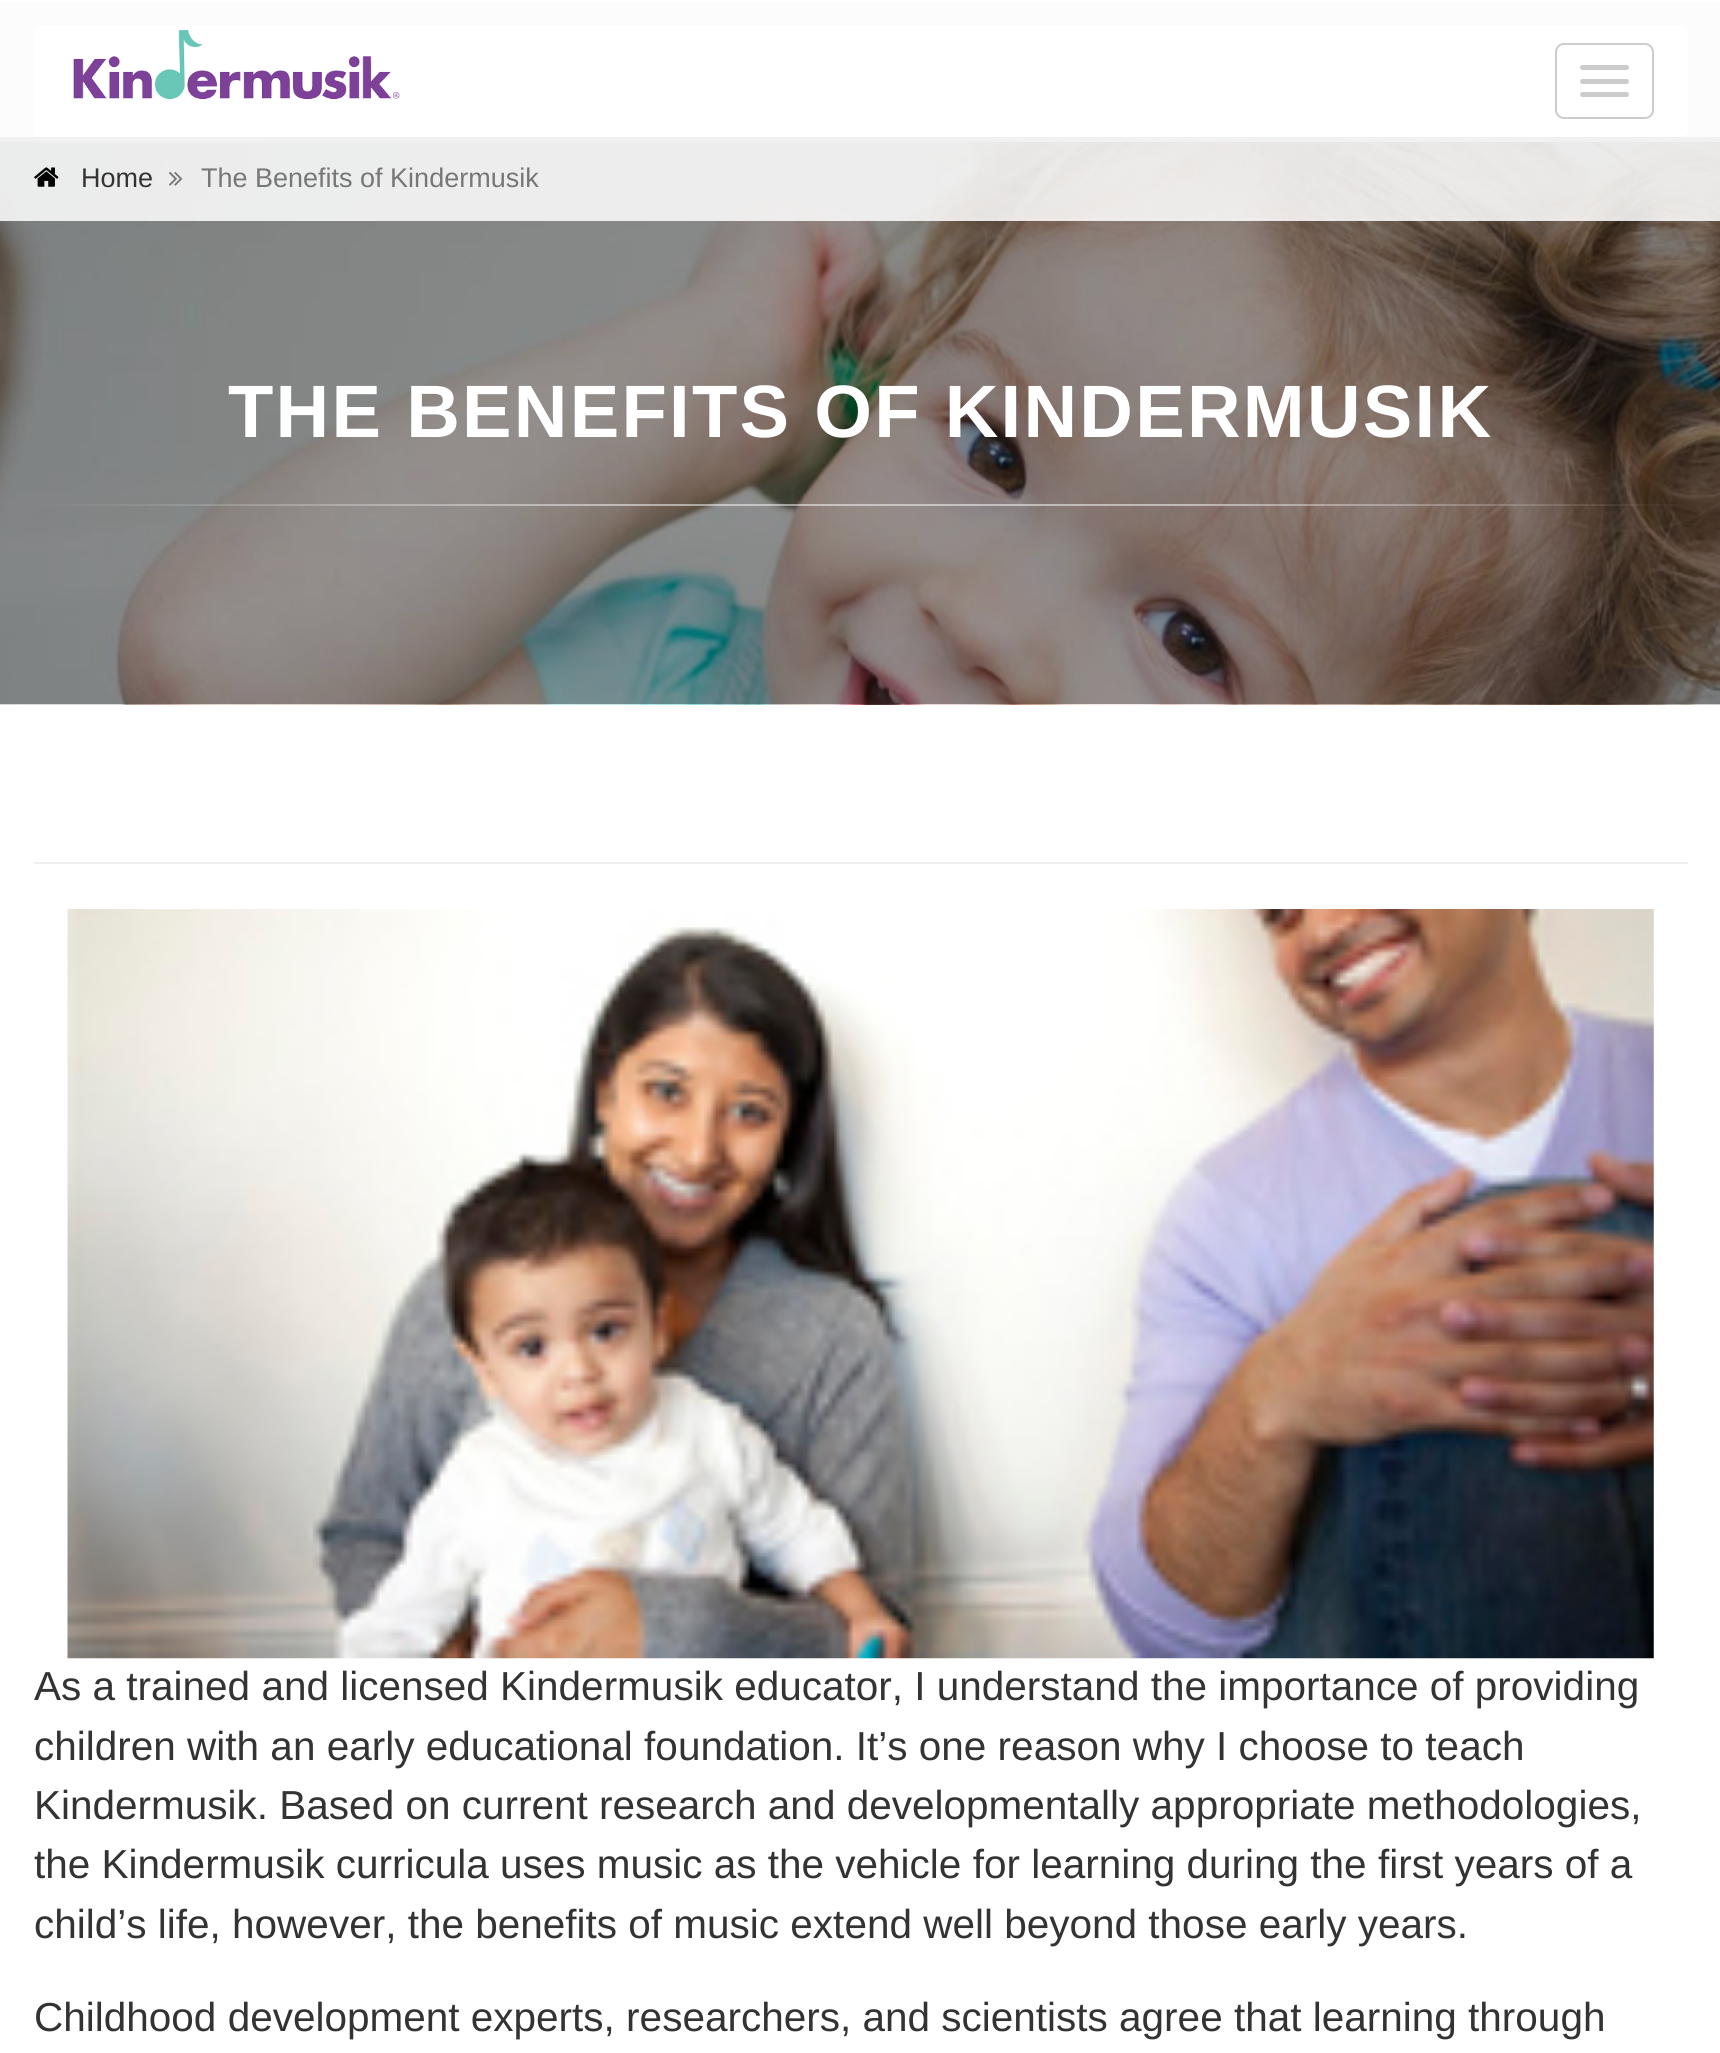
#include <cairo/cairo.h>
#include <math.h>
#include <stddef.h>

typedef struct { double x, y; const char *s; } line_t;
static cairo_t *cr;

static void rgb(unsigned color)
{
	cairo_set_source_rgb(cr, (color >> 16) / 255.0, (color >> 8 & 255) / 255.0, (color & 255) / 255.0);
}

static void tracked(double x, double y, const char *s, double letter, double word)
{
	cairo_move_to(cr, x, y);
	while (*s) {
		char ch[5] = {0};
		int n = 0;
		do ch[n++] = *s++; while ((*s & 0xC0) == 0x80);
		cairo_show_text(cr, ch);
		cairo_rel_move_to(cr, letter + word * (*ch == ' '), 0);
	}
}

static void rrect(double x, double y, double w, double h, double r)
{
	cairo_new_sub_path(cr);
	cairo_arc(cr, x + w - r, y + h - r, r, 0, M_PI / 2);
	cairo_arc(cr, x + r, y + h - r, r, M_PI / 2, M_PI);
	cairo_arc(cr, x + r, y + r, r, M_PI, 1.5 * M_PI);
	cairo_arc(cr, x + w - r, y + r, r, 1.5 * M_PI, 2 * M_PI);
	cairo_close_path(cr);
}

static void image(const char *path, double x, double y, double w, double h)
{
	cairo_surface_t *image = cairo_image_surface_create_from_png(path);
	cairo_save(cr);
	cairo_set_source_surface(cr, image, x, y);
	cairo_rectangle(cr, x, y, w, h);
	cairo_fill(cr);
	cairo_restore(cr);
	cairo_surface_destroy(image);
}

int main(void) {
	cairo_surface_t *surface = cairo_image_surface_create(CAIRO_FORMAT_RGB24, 1720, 2053);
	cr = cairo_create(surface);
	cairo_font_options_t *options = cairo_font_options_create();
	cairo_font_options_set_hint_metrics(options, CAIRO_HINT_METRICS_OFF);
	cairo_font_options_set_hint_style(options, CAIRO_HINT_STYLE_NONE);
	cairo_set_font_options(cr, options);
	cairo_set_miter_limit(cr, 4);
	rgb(0xffffff);
	cairo_paint(cr);
	rgb(0xfcfcfc);
	cairo_rectangle(cr, 0, 2, 1720, 135);
	cairo_fill(cr);
	rgb(0xf1f1f1);
	cairo_rectangle(cr, 0, 137, 1720, 5);
	cairo_fill(cr);
	rgb(0xffffff);
	rrect(34, 25, 1654, 112, 7);
	cairo_fill(cr);
	image("img/1.png", 73, 30, 327, 70);
	rrect(1556, 44, 97, 74, 8);
	rgb(0xcccccc);
	cairo_stroke(cr);
	rrect(1580, 65, 49, 5, 2.5);
	cairo_fill(cr);
	rrect(1580, 79, 49, 5, 2.5);
	cairo_fill(cr);
	rrect(1580, 92, 49, 5, 2.5);
	cairo_fill(cr);
	image("img/2.png", 0, 142, 1720, 563);
	cairo_set_source_rgba(cr, 1, 1, 1, 0.85);
	cairo_rectangle(cr, 0, 142, 1720, 79);
	cairo_fill(cr);
	cairo_set_source_rgba(cr, 1, 1, 1, 0.1);
	cairo_rectangle(cr, 946, 218, 774, 2);
	cairo_fill(cr);
	image("img/3.png", 34, 167, 25, 20);
	image("img/4.png", 169, 172, 14, 14);
	rgb(0xeeeeee);
	cairo_rectangle(cr, 34, 862, 1654, 2);
	cairo_fill(cr);
	image("img/5.png", 67, 909, 1587, 750);
	cairo_select_font_face(cr, "Liberation Sans", CAIRO_FONT_SLANT_NORMAL, CAIRO_FONT_WEIGHT_NORMAL);
	cairo_set_font_size(cr, 27);
	rgb(0x333333);
	cairo_move_to(cr, 81, 187);
	cairo_show_text(cr, "Home");
	rgb(0x777777);
	cairo_move_to(cr, 201, 187);
	cairo_show_text(cr, "The Benefits of Kindermusik");
	cairo_select_font_face(cr, "Liberation Sans", CAIRO_FONT_SLANT_NORMAL, CAIRO_FONT_WEIGHT_BOLD);
	cairo_set_font_size(cr, 74.25);
	rgb(0xffffff);
	tracked(228, 437, "THE BENEFITS OF KINDERMUSIK", 2.25, 0);
	cairo_select_font_face(cr, "Liberation Sans", CAIRO_FONT_SLANT_NORMAL, CAIRO_FONT_WEIGHT_NORMAL);
	cairo_set_font_size(cr, 40.5);
	rgb(0x333333);
	{
		static const line_t items[] = {
			{34, 1700, "As a trained and licensed Kindermusik educator, I understand the importance of providing"},
			{34, 1760, "children with an early educational foundation. It’s one reason why I choose to teach"},
			{34, 1819, "Kindermusik. Based on current research and developmentally appropriate methodologies,"},
			{34, 1878, "the Kindermusik curricula uses music as the vehicle for learning during the first years of a"},
			{34, 1938, "child’s life, however, the benefits of music extend well beyond those early years."},
			{34, 2031, "Childhood development experts, researchers, and scientists agree that learning through"},
		};
		for (size_t i = 0; i < sizeof items / sizeof *items; i++) {
			cairo_move_to(cr, items[i].x, items[i].y);
			cairo_show_text(cr, items[i].s);
		}
	}
	cairo_surface_write_to_png(surface, "page.png");
	cairo_font_options_destroy(options);
	cairo_destroy(cr);
	cairo_surface_destroy(surface);
	return 0;
}
